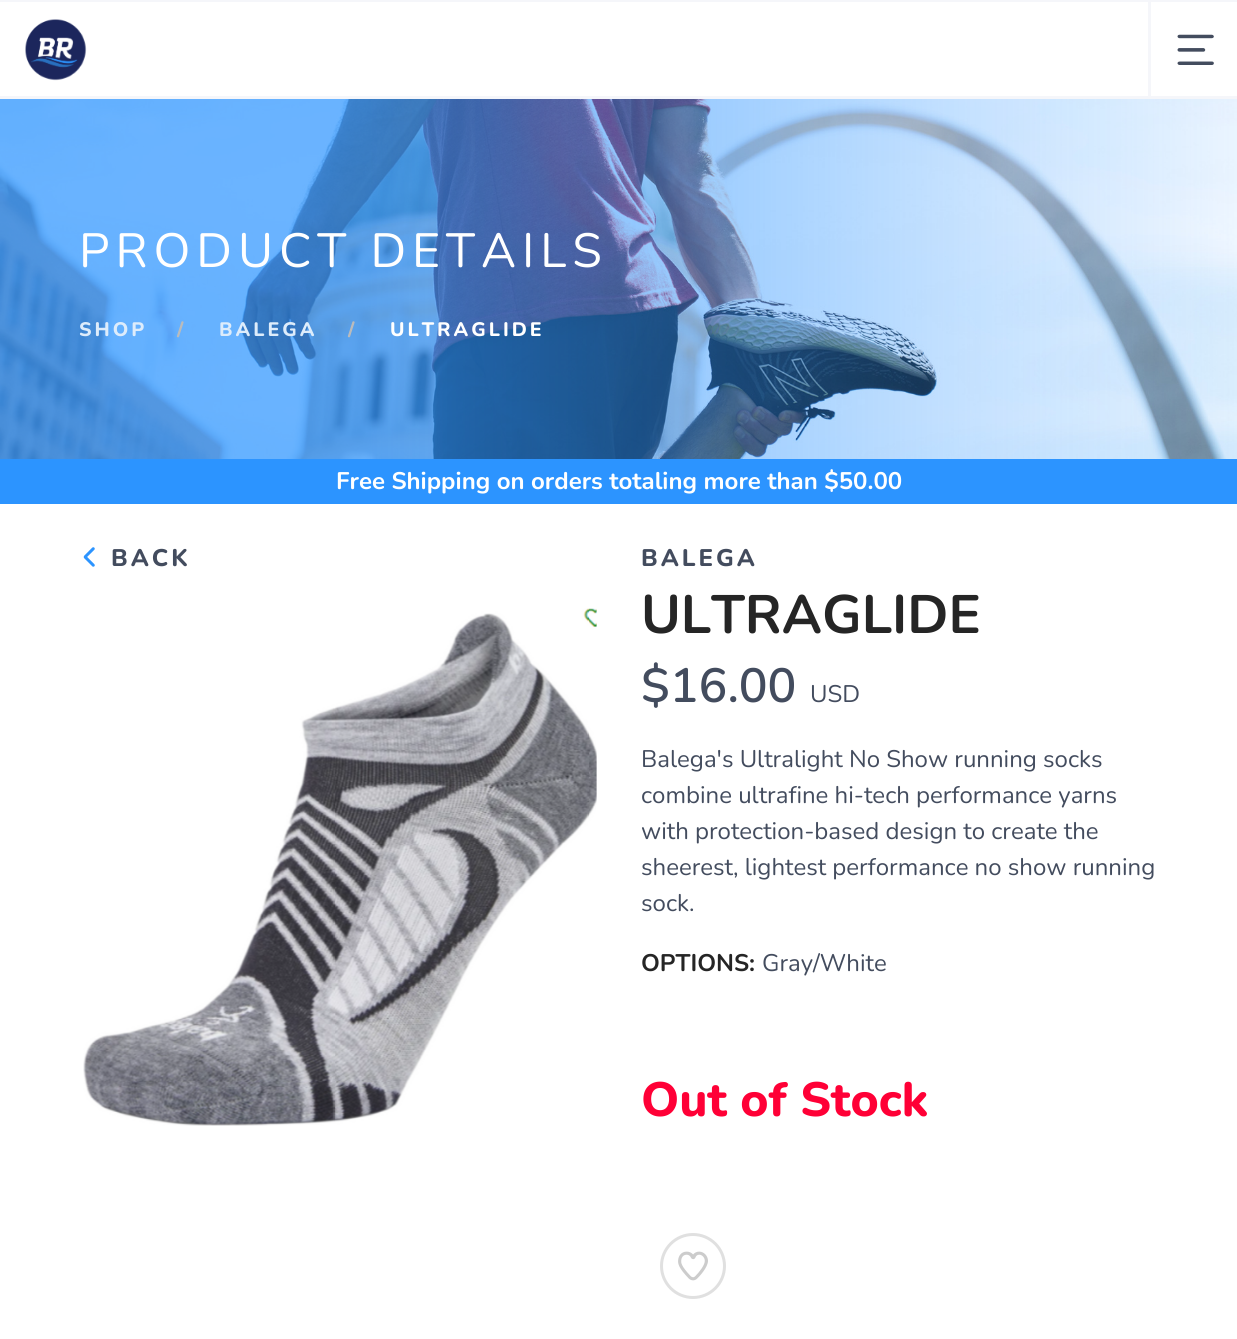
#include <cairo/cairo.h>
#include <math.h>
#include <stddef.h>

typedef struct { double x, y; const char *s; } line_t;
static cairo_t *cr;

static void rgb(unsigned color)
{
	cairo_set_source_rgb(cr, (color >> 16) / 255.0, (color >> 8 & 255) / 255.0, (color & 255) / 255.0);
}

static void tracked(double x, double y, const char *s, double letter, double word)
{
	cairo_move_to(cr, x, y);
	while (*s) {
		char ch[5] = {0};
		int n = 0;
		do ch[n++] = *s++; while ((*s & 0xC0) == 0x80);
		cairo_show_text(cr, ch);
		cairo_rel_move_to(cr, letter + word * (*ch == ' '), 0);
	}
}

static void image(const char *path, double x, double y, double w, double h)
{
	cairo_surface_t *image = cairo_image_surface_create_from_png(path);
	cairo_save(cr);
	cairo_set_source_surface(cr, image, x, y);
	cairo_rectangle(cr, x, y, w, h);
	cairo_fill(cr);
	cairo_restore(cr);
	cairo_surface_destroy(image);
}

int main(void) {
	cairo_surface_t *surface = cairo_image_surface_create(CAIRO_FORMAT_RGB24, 1237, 1339);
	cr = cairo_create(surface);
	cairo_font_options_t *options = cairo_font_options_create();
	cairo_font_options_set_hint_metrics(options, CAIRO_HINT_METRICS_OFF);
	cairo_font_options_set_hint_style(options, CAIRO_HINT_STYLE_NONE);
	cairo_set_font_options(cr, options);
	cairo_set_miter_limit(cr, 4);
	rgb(0xffffff);
	cairo_paint(cr);
	rgb(0xf5f6fa);
	cairo_rectangle(cr, 0, 0, 1237, 2);
	cairo_fill(cr);
	cairo_rectangle(cr, 0, 96, 1237, 3);
	cairo_fill(cr);
	image("img/1.png", 25, 19, 62, 62);
	cairo_rectangle(cr, 1148, 2, 3, 94);
	cairo_fill(cr);
	image("img/2.png", 1177, 34, 37, 31);
	image("img/3.png", 0, 99, 1237, 360);
	rgb(0x2c94ff);
	cairo_rectangle(cr, 0, 459, 1237, 45);
	cairo_fill(cr);
	image("img/4.png", 83, 547, 12, 20);
	image("img/5.png", 83, 608, 514, 518);
	cairo_arc(cr, 693, 1266, 31.5, 0, 2 * M_PI);
	rgb(0xe0e0e0);
	cairo_set_line_width(cr, 3);
	cairo_stroke(cr);
	image("img/6.png", 678, 1251, 30, 30);
	cairo_select_font_face(cr, "Nunito", CAIRO_FONT_SLANT_NORMAL, CAIRO_FONT_WEIGHT_NORMAL);
	cairo_set_font_size(cr, 48);
	rgb(0xffffff);
	tracked(79, 267, "PRODUCT DETAILS", 6, 0);
	cairo_select_font_face(cr, "Nunito ExtraBold", CAIRO_FONT_SLANT_NORMAL, CAIRO_FONT_WEIGHT_NORMAL);
	cairo_set_font_size(cr, 19.5);
	rgb(0xddecfb);
	tracked(79, 336, "SHOP", 3, 0);
	rgb(0xbbbbbb);
	tracked(177, 336, "/", 3, 0);
	rgb(0xddecfb);
	tracked(219, 336, "BALEGA", 3, 0);
	rgb(0xbbbbbb);
	tracked(348, 336, "/", 3, 0);
	rgb(0xffffff);
	tracked(390, 336, "ULTRAGLIDE", 3, 0);
	cairo_select_font_face(cr, "Nunito", CAIRO_FONT_SLANT_NORMAL, CAIRO_FONT_WEIGHT_BOLD);
	cairo_set_font_size(cr, 24);
	cairo_move_to(cr, 336, 489);
	cairo_show_text(cr, "Free Shipping on orders totaling more than $50.00");
	cairo_select_font_face(cr, "Nunito ExtraBold", CAIRO_FONT_SLANT_NORMAL, CAIRO_FONT_WEIGHT_NORMAL);
	rgb(0x434c5e);
	tracked(111, 566, "BACK", 3, 0);
	tracked(641, 566, "BALEGA", 3, 0);
	cairo_select_font_face(cr, "Nunito", CAIRO_FONT_SLANT_NORMAL, CAIRO_FONT_WEIGHT_BOLD);
	cairo_set_font_size(cr, 54);
	rgb(0x252525);
	cairo_move_to(cr, 641, 633);
	cairo_show_text(cr, "ULTRAGLIDE");
	cairo_select_font_face(cr, "Nunito SemiBold", CAIRO_FONT_SLANT_NORMAL, CAIRO_FONT_WEIGHT_NORMAL);
	cairo_set_font_size(cr, 48);
	rgb(0x434c5e);
	cairo_move_to(cr, 641, 702);
	cairo_show_text(cr, "$16.00");
	cairo_select_font_face(cr, "Nunito", CAIRO_FONT_SLANT_NORMAL, CAIRO_FONT_WEIGHT_NORMAL);
	cairo_set_font_size(cr, 24);
	{
		static const line_t items[] = {
			{810, 702, "USD"},
			{641, 767, "Balega's Ultralight No Show running socks"},
			{641, 803, "combine ultrafine hi-tech performance yarns"},
			{641, 839, "with protection-based design to create the"},
			{641, 875, "sheerest, lightest performance no show running"},
			{641, 911, "sock."},
		};
		for (size_t i = 0; i < sizeof items / sizeof *items; i++) {
			cairo_move_to(cr, items[i].x, items[i].y);
			cairo_show_text(cr, items[i].s);
		}
	}
	cairo_select_font_face(cr, "Nunito", CAIRO_FONT_SLANT_NORMAL, CAIRO_FONT_WEIGHT_BOLD);
	rgb(0x252525);
	cairo_move_to(cr, 641, 971);
	cairo_show_text(cr, "OPTIONS:");
	cairo_select_font_face(cr, "Nunito", CAIRO_FONT_SLANT_NORMAL, CAIRO_FONT_WEIGHT_NORMAL);
	rgb(0x434c5e);
	cairo_move_to(cr, 762, 971);
	cairo_show_text(cr, "Gray/White");
	cairo_select_font_face(cr, "Nunito ExtraBold", CAIRO_FONT_SLANT_NORMAL, CAIRO_FONT_WEIGHT_NORMAL);
	cairo_set_font_size(cr, 48);
	rgb(0xff0036);
	cairo_move_to(cr, 641, 1116);
	cairo_show_text(cr, "Out of Stock");
	cairo_surface_write_to_png(surface, "page.png");
	cairo_font_options_destroy(options);
	cairo_destroy(cr);
	cairo_surface_destroy(surface);
	return 0;
}
